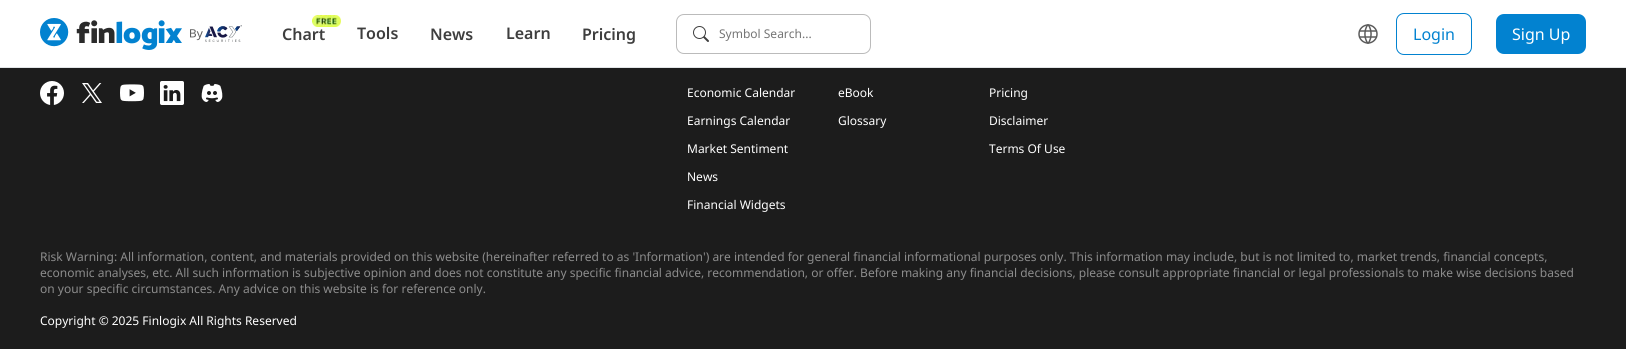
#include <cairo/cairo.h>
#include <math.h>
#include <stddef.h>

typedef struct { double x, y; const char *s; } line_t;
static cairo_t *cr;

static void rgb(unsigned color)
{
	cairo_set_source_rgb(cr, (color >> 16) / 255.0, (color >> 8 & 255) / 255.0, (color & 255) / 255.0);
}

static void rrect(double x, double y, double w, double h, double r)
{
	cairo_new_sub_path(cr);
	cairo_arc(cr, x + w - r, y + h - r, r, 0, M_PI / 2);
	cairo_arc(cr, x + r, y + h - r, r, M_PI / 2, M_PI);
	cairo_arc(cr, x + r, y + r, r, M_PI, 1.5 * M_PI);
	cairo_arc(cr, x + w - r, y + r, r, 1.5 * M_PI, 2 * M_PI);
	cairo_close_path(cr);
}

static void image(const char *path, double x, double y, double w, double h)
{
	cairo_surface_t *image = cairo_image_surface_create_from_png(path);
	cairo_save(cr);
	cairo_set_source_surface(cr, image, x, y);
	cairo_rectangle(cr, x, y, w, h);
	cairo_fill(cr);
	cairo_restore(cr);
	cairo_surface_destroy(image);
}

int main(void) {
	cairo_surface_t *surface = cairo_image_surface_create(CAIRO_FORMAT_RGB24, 1626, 349);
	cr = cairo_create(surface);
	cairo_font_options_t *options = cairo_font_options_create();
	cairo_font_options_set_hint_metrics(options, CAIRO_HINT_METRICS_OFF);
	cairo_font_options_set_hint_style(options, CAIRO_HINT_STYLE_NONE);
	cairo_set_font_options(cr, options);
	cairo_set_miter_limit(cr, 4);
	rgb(0x1c1c1c);
	cairo_paint(cr);
	rgb(0xffffff);
	cairo_rectangle(cr, 0, 0, 1626, 67);
	cairo_fill(cr);
	rgb(0xe2e5e7);
	cairo_rectangle(cr, 0, 67, 1626, 1);
	cairo_fill(cr);
	image("img/1.png", 40, 18, 142, 32);
	image("img/2.png", 190, 25, 52, 17);
	image("img/3.png", 312, 15, 29, 12);
	rrect(676.5, 14.5, 194, 39, 7.5);
	rgb(0xbbbbbb);
	cairo_set_line_width(cr, 1);
	cairo_stroke(cr);
	image("img/4.png", 693, 26, 16, 16);
	image("img/5.png", 1358, 24, 20, 20);
	rrect(1396.5, 13.5, 75, 41, 7.5);
	rgb(0x0282d0);
	cairo_stroke(cr);
	rrect(1496, 14, 90, 40, 8);
	cairo_fill(cr);
	image("img/6.png", 40, 81, 24, 24);
	image("img/7.png", 82, 83, 20, 20);
	image("img/8.png", 120, 84, 24, 18);
	image("img/9.png", 160, 81, 24, 24);
	image("img/10.png", 201, 84, 22, 18);
	cairo_select_font_face(cr, "Noto Sans SemiBold", CAIRO_FONT_SLANT_NORMAL, CAIRO_FONT_WEIGHT_NORMAL);
	cairo_set_font_size(cr, 16);
	rgb(0x3e3e3e);
	{
		static const line_t items[] = {
			{282, 40, "Chart"},
			{357, 39, "Tools"},
			{430, 40, "News"},
			{506, 39, "Learn"},
			{582, 40, "Pricing"},
		};
		for (size_t i = 0; i < sizeof items / sizeof *items; i++) {
			cairo_move_to(cr, items[i].x, items[i].y);
			cairo_show_text(cr, items[i].s);
		}
	}
	cairo_select_font_face(cr, "Noto Sans", CAIRO_FONT_SLANT_NORMAL, CAIRO_FONT_WEIGHT_NORMAL);
	cairo_set_font_size(cr, 12);
	rgb(0x757575);
	cairo_move_to(cr, 719, 38);
	cairo_show_text(cr, "Symbol Search...");
	cairo_set_font_size(cr, 16);
	rgb(0x0282d0);
	cairo_move_to(cr, 1413, 40);
	cairo_show_text(cr, "Login");
	rgb(0xffffff);
	cairo_move_to(cr, 1512, 40);
	cairo_show_text(cr, "Sign Up");
	cairo_set_font_size(cr, 12);
	{
		static const line_t items[] = {
			{687, 97, "Economic Calendar"},
			{687, 125, "Earnings Calendar"},
			{687, 153, "Market Sentiment"},
			{687, 181, "News"},
			{687, 209, "Financial Widgets"},
			{838, 97, "eBook"},
			{838, 125, "Glossary"},
			{989, 97, "Pricing"},
			{989, 125, "Disclaimer"},
			{989, 153, "Terms Of Use"},
		};
		for (size_t i = 0; i < sizeof items / sizeof *items; i++) {
			cairo_move_to(cr, items[i].x, items[i].y);
			cairo_show_text(cr, items[i].s);
		}
	}
	rgb(0x8c8c8c);
	{
		static const line_t items[] = {
			{40, 261, "Risk Warning: All information, content, and materials provided on this website (hereinafter referred to as 'Information') are intended for general financial informational purposes only. This information may include, but is not limited to, market trends, financial concepts,"},
			{40, 277, "economic analyses, etc. All such information is subjective opinion and does not constitute any specific financial advice, recommendation, or offer. Before making any financial decisions, please consult appropriate financial or legal professionals to make wise decisions based"},
			{40, 293, "on your specific circumstances. Any advice on this website is for reference only."},
		};
		for (size_t i = 0; i < sizeof items / sizeof *items; i++) {
			cairo_move_to(cr, items[i].x, items[i].y);
			cairo_show_text(cr, items[i].s);
		}
	}
	rgb(0xffffff);
	cairo_move_to(cr, 40, 325);
	cairo_show_text(cr, "Copyright © 2025 Finlogix All Rights Reserved");
	cairo_surface_write_to_png(surface, "page.png");
	cairo_font_options_destroy(options);
	cairo_destroy(cr);
	cairo_surface_destroy(surface);
	return 0;
}
